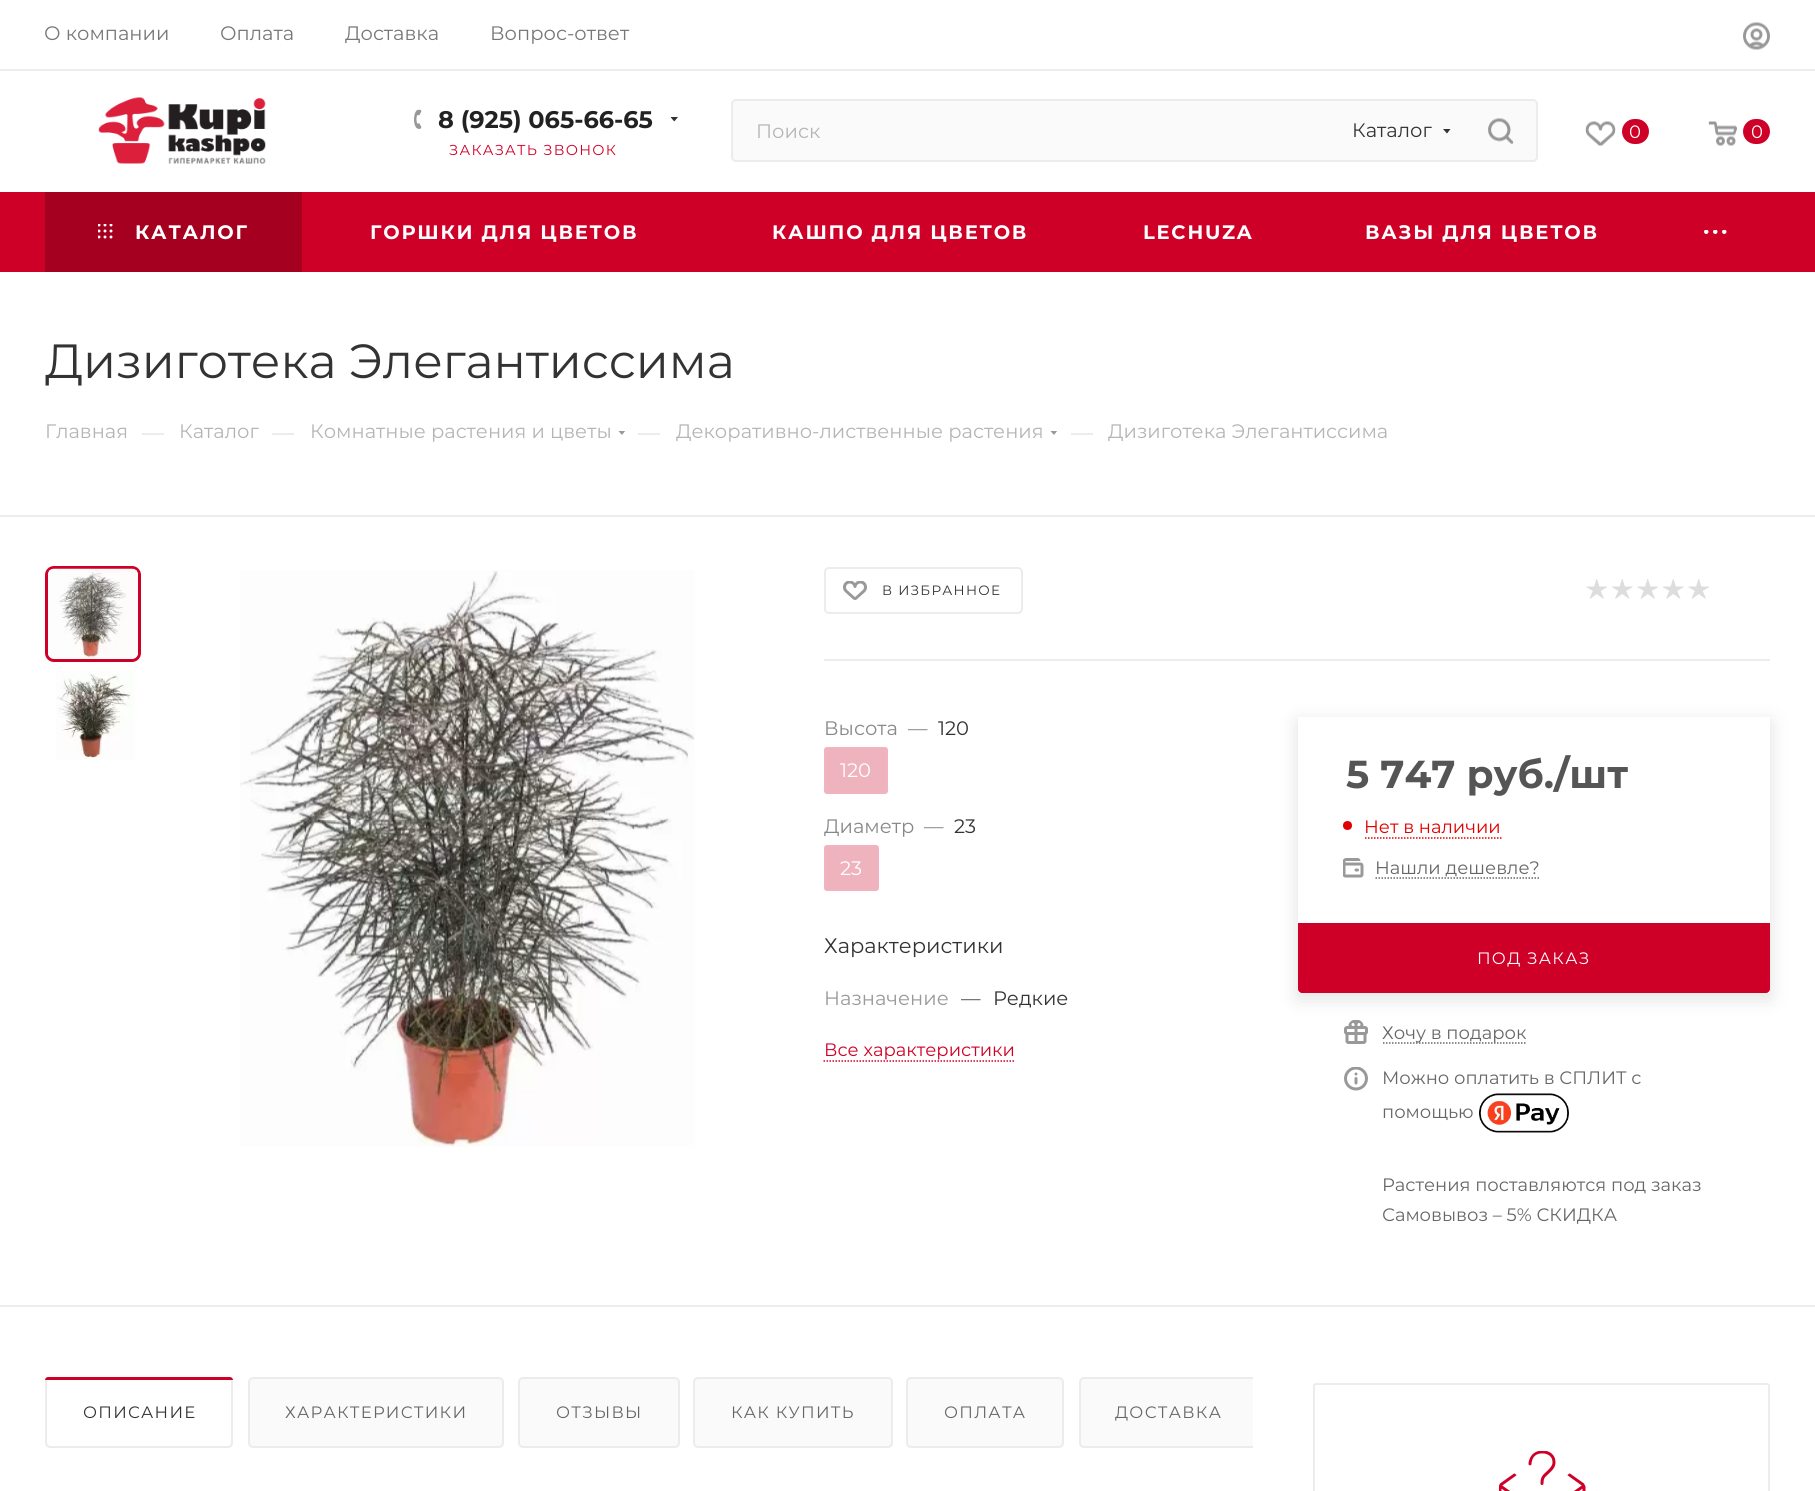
#include <cairo/cairo.h>
#include <math.h>
#include <stddef.h>

typedef struct { double x, y; const char *s; } line_t;
static cairo_t *cr;

static void rgb(unsigned color)
{
	cairo_set_source_rgb(cr, (color >> 16) / 255.0, (color >> 8 & 255) / 255.0, (color & 255) / 255.0);
}

static void tracked(double x, double y, const char *s, double letter, double word)
{
	cairo_move_to(cr, x, y);
	while (*s) {
		char ch[5] = {0};
		int n = 0;
		do ch[n++] = *s++; while ((*s & 0xC0) == 0x80);
		cairo_show_text(cr, ch);
		cairo_rel_move_to(cr, letter + word * (*ch == ' '), 0);
	}
}

static void rrect(double x, double y, double w, double h, double r)
{
	cairo_new_sub_path(cr);
	cairo_arc(cr, x + w - r, y + h - r, r, 0, M_PI / 2);
	cairo_arc(cr, x + r, y + h - r, r, M_PI / 2, M_PI);
	cairo_arc(cr, x + r, y + r, r, M_PI, 1.5 * M_PI);
	cairo_arc(cr, x + w - r, y + r, r, 1.5 * M_PI, 2 * M_PI);
	cairo_close_path(cr);
}

static void soft_shadow(double x, double y, double w, double h, double r, double blur, double alpha)
{
	cairo_push_group_with_content(cr, CAIRO_CONTENT_ALPHA);
	cairo_set_operator(cr, CAIRO_OPERATOR_SOURCE);
	for (int i = 15; i >= -15 && fmin(w, h) + blur * i / 3 > 0; i -= 2) {
		double e = blur * i / 6;
		cairo_set_source_rgba(cr, 0, 0, 0, alpha * erfc((i - 1) / 8.5) / 2);
		rrect(x - e, y - e, w + 2 * e, h + 2 * e, fmax(0, fmin(r + e + blur * .6, fmin(w, h) / 2 + e)));
		cairo_fill(cr);
	}
	cairo_pattern_t *soft = cairo_pop_group(cr);
	cairo_mask(cr, soft);
	cairo_pattern_destroy(soft);
}

static void image(const char *path, double x, double y, double w, double h)
{
	cairo_surface_t *image = cairo_image_surface_create_from_png(path);
	cairo_save(cr);
	cairo_set_source_surface(cr, image, x, y);
	cairo_rectangle(cr, x, y, w, h);
	cairo_fill(cr);
	cairo_restore(cr);
	cairo_surface_destroy(image);
}

int main(void) {
	cairo_surface_t *surface = cairo_image_surface_create(CAIRO_FORMAT_RGB24, 1815, 1491);
	cr = cairo_create(surface);
	cairo_font_options_t *options = cairo_font_options_create();
	cairo_font_options_set_hint_metrics(options, CAIRO_HINT_METRICS_OFF);
	cairo_font_options_set_hint_style(options, CAIRO_HINT_STYLE_NONE);
	cairo_set_font_options(cr, options);
	cairo_set_miter_limit(cr, 4);
	rgb(0xffffff);
	cairo_paint(cr);
	rgb(0xececec);
	cairo_rectangle(cr, 0, 69, 1815, 2);
	cairo_fill(cr);
	image("img/1.png", 1743, 22, 27, 28);
	image("img/2.png", 98, 97, 168, 67);
	image("img/3.png", 414, 109, 8, 20);
	image("img/4.png", 670, 117, 8, 5);
	rgb(0xfafafa);
	rrect(732, 100, 805, 61, 4);
	cairo_fill_preserve(cr);
	rgb(0xececec);
	cairo_stroke(cr);
	rgb(0x333333);
	cairo_set_fill_rule(cr, CAIRO_FILL_RULE_EVEN_ODD);
	cairo_new_path(cr);
	cairo_move_to(cr, 1443, 129);
	cairo_line_to(cr, 1450.5, 129);
	cairo_line_to(cr, 1447, 133.5);
	cairo_close_path(cr);
	cairo_fill(cr);
	image("img/5.png", 1488, 118, 26, 27);
	image("img/6.png", 1585, 121, 31, 25);
	rgb(0xcf0028);
	rrect(1622, 119, 27, 25, 12.5);
	cairo_fill(cr);
	image("img/7.png", 1708, 121, 29, 25);
	rrect(1743, 119, 27, 25, 12.5);
	cairo_fill(cr);
	cairo_rectangle(cr, 0, 192, 1815, 80);
	cairo_fill(cr);
	rgb(0xa60020);
	cairo_rectangle(cr, 45, 192, 257, 80);
	cairo_fill(cr);
	image("img/8.png", 98, 224, 15, 15);
	image("img/9.png", 1704, 230, 23, 4);
	cairo_save(cr);
	cairo_set_fill_rule(cr, CAIRO_FILL_RULE_WINDING);
	cairo_rectangle(cr, 618, 431, 8, 5);
	cairo_clip(cr);
	rgb(0x999999);
	cairo_set_fill_rule(cr, CAIRO_FILL_RULE_EVEN_ODD);
	cairo_new_path(cr);
	cairo_move_to(cr, 618, 430.5);
	cairo_line_to(cr, 625.5, 430.5);
	cairo_line_to(cr, 622, 435);
	cairo_close_path(cr);
	cairo_fill(cr);
	cairo_restore(cr);
	cairo_save(cr);
	cairo_set_fill_rule(cr, CAIRO_FILL_RULE_WINDING);
	cairo_rectangle(cr, 1050, 431, 8, 5);
	cairo_clip(cr);
	rgb(0x999999);
	cairo_set_fill_rule(cr, CAIRO_FILL_RULE_EVEN_ODD);
	cairo_new_path(cr);
	cairo_move_to(cr, 1050, 430.5);
	cairo_line_to(cr, 1057.5, 430.5);
	cairo_line_to(cr, 1054, 435);
	cairo_close_path(cr);
	cairo_fill(cr);
	cairo_restore(cr);
	rgb(0xececec);
	cairo_rectangle(cr, 0, 515, 1815, 2);
	cairo_fill(cr);
	cairo_rectangle(cr, 0, 1305, 1815, 2);
	cairo_fill(cr);
	rrect(46.5, 567.5, 93, 93, 7.5);
	rgb(0xcf0028);
	cairo_set_line_width(cr, 3);
	cairo_stroke(cr);
	image("img/10.png", 48, 568, 90, 91);
	image("img/11.png", 56, 671, 79, 89);
	image("img/12.png", 240, 570, 455, 577);
	rgb(0xececec);
	cairo_rectangle(cr, 824, 659, 946, 2);
	cairo_fill(cr);
	rrect(825, 568, 197, 45, 4);
	cairo_set_line_width(cr, 2);
	cairo_stroke(cr);
	image("img/13.png", 843, 581, 24, 19);
	image("img/14.png", 1586, 579, 21, 20);
	image("img/15.png", 1612, 579, 21, 20);
	image("img/14.png", 1637, 579, 21, 20);
	image("img/15.png", 1663, 579, 21, 20);
	image("img/14.png", 1688, 579, 21, 20);
	rgb(0xefb3be);
	rrect(825, 748, 62, 45, 2);
	cairo_fill_preserve(cr);
	rgb(0xf1b3bf);
	cairo_stroke(cr);
	rgb(0xefb3be);
	rrect(825, 846, 53, 44, 2);
	cairo_fill_preserve(cr);
	rgb(0xf1b3bf);
	cairo_stroke(cr);
	cairo_new_path(cr);
	cairo_move_to(cr, 823.5, 1061);
	cairo_line_to(cr, 1014, 1061);
	rgb(0xcf0028);
	cairo_set_line_width(cr, 1.5);
	cairo_set_dash(cr, (double[]){1.5, 1.5}, 2, 0);
	cairo_stroke(cr);
	cairo_save(cr);
	cairo_new_path(cr);
	cairo_move_to(cr, 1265, 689);
	cairo_line_to(cr, 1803, 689);
	cairo_line_to(cr, 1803, 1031);
	cairo_line_to(cr, 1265, 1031);
	cairo_close_path(cr);
	cairo_move_to(cr, 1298, 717);
	cairo_line_to(cr, 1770, 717);
	cairo_line_to(cr, 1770, 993);
	cairo_line_to(cr, 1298, 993);
	cairo_close_path(cr);
	cairo_clip(cr);
	rgb(0x000000);
	soft_shadow(1298, 722, 472, 276, 0, 10.5, 0.12);
	cairo_restore(cr);
	rgb(0xe10000);
	cairo_arc(cr, 1347.5, 825.5, 4.5, 0, 2 * M_PI);
	cairo_fill(cr);
	cairo_new_path(cr);
	cairo_move_to(cr, 1365, 838);
	cairo_line_to(cr, 1501.5, 838);
	cairo_stroke(cr);
	image("img/16.png", 1343, 858, 21, 20);
	cairo_new_path(cr);
	cairo_move_to(cr, 1375.5, 878);
	cairo_line_to(cr, 1540.5, 878);
	rgb(0x666666);
	cairo_stroke(cr);
	rgb(0xcf0028);
	cairo_new_path(cr);
	cairo_move_to(cr, 1298, 923);
	cairo_line_to(cr, 1770, 923);
	cairo_line_to(cr, 1770, 988);
	cairo_curve_to(cr, 1770, 991, 1768, 993, 1765, 993);
	cairo_line_to(cr, 1303, 993);
	cairo_curve_to(cr, 1300, 993, 1298, 991, 1298, 988);
	cairo_close_path(cr);
	cairo_fill(cr);
	cairo_new_path(cr);
	cairo_move_to(cr, 1298, 923);
	cairo_line_to(cr, 1298, 988);
	cairo_curve_to(cr, 1298, 991, 1300, 993, 1303, 993);
	cairo_line_to(cr, 1765, 993);
	cairo_curve_to(cr, 1768, 993, 1770, 991, 1770, 988);
	cairo_line_to(cr, 1770, 923);
	cairo_close_path(cr);
	cairo_move_to(cr, 1300, 925);
	cairo_line_to(cr, 1300, 991);
	cairo_line_to(cr, 1768, 991);
	cairo_line_to(cr, 1768, 925);
	cairo_close_path(cr);
	cairo_fill(cr);
	image("img/17.png", 1344, 1020, 24, 24);
	cairo_new_path(cr);
	cairo_move_to(cr, 1383, 1043);
	cairo_line_to(cr, 1527, 1043);
	rgb(0x666666);
	cairo_stroke(cr);
	image("img/18.png", 1344, 1067, 24, 24);
	image("img/19.png", 1479, 1093, 90, 40);
	rgb(0xfafafa);
	rrect(46, 1378, 186, 69, 4);
	cairo_fill_preserve(cr);
	rgb(0xececec);
	cairo_set_line_width(cr, 2);
	cairo_set_dash(cr, NULL, 0, 0);
	cairo_stroke(cr);
	rgb(0xffffff);
	rrect(47, 1379, 184, 67, 5);
	cairo_fill(cr);
	rgb(0xcf0028);
	cairo_new_path(cr);
	cairo_move_to(cr, 48, 1377);
	cairo_line_to(cr, 230, 1377);
	cairo_curve_to(cr, 231.5, 1377, 233, 1378.5, 233, 1380);
	cairo_line_to(cr, 45, 1380);
	cairo_curve_to(cr, 45, 1378.5, 46.5, 1377, 48, 1377);
	cairo_close_path(cr);
	cairo_fill(cr);
	rgb(0xfafafa);
	rrect(249, 1378, 254, 69, 4);
	cairo_fill_preserve(cr);
	rgb(0xececec);
	cairo_stroke(cr);
	rgb(0xfafafa);
	rrect(519, 1378, 160, 69, 4);
	cairo_fill_preserve(cr);
	rgb(0xececec);
	cairo_stroke(cr);
	rgb(0xfafafa);
	rrect(694, 1378, 198, 69, 4);
	cairo_fill_preserve(cr);
	rgb(0xececec);
	cairo_stroke(cr);
	rgb(0xfafafa);
	rrect(907, 1378, 156, 69, 4);
	cairo_fill_preserve(cr);
	rgb(0xececec);
	cairo_stroke(cr);
	rgb(0xfafafa);
	cairo_new_path(cr);
	cairo_move_to(cr, 1084, 1377);
	cairo_line_to(cr, 1253, 1377);
	cairo_line_to(cr, 1253, 1448);
	cairo_line_to(cr, 1084, 1448);
	cairo_curve_to(cr, 1081, 1448, 1079, 1446, 1079, 1443);
	cairo_line_to(cr, 1079, 1382);
	cairo_curve_to(cr, 1079, 1379, 1081, 1377, 1084, 1377);
	cairo_close_path(cr);
	cairo_fill(cr);
	cairo_save(cr);
	cairo_set_fill_rule(cr, CAIRO_FILL_RULE_WINDING);
	cairo_rectangle(cr, 45, 1377, 1208, 71);
	cairo_clip(cr);
	rrect(1080, 1378, 179, 69, 4);
	rgb(0xececec);
	cairo_stroke(cr);
	cairo_restore(cr);
	rrect(1314, 1384, 455, 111, 2);
	rgb(0xececec);
	cairo_stroke(cr);
	image("img/20.png", 1499, 1451, 87, 40);
	cairo_select_font_face(cr, "Montserrat", CAIRO_FONT_SLANT_NORMAL, CAIRO_FONT_WEIGHT_NORMAL);
	cairo_set_font_size(cr, 19.5);
	rgb(0x777777);
	{
		static const line_t items[] = {
			{44, 40, "О компании"},
			{220, 40, "Оплата"},
			{345, 40, "Доставка"},
			{490, 40, "Вопрос-ответ"},
		};
		for (size_t i = 0; i < sizeof items / sizeof *items; i++) {
			cairo_move_to(cr, items[i].x, items[i].y);
			cairo_show_text(cr, items[i].s);
		}
	}
	cairo_select_font_face(cr, "Montserrat", CAIRO_FONT_SLANT_NORMAL, CAIRO_FONT_WEIGHT_BOLD);
	cairo_set_font_size(cr, 24);
	rgb(0x222222);
	cairo_move_to(cr, 438, 128);
	cairo_show_text(cr, "8 (925) 065-66-65");
	cairo_select_font_face(cr, "Montserrat", CAIRO_FONT_SLANT_NORMAL, CAIRO_FONT_WEIGHT_NORMAL);
	cairo_set_font_size(cr, 14.4);
	rgb(0xcf0028);
	tracked(449, 155, "ЗАКАЗАТЬ ЗВОНОК", 1.25, 0);
	cairo_set_font_size(cr, 19.5);
	rgb(0xb6b5b5);
	cairo_move_to(cr, 756, 138);
	cairo_show_text(cr, "Поиск");
	rgb(0x333333);
	cairo_move_to(cr, 1352, 137);
	cairo_show_text(cr, "Каталог");
	cairo_set_font_size(cr, 18);
	rgb(0xffffff);
	cairo_move_to(cr, 1629, 138);
	cairo_show_text(cr, "0");
	cairo_move_to(cr, 1751, 138);
	cairo_show_text(cr, "0");
	cairo_select_font_face(cr, "Montserrat", CAIRO_FONT_SLANT_NORMAL, CAIRO_FONT_WEIGHT_BOLD);
	cairo_set_font_size(cr, 19.5);
	{
		static const line_t items[] = {
			{135, 239, "КАТАЛОГ"},
			{370, 239, "ГОРШКИ ДЛЯ ЦВЕТОВ"},
			{772, 239, "КАШПО ДЛЯ ЦВЕТОВ"},
			{1143, 239, "LECHUZA"},
			{1365, 239, "ВАЗЫ ДЛЯ ЦВЕТОВ"},
		};
		for (size_t i = 0; i < sizeof items / sizeof *items; i++) {
			tracked(items[i].x, items[i].y, items[i].s, 1.75, 0);
		}
	}
	cairo_select_font_face(cr, "Montserrat", CAIRO_FONT_SLANT_NORMAL, CAIRO_FONT_WEIGHT_NORMAL);
	cairo_set_font_size(cr, 48);
	rgb(0x333333);
	cairo_move_to(cr, 45, 378);
	cairo_show_text(cr, "Дизиготека Элегантиссима");
	cairo_set_font_size(cr, 19.5);
	rgb(0xb6b5b5);
	cairo_move_to(cr, 45, 438);
	cairo_show_text(cr, "Главная");
	cairo_set_font_size(cr, 22);
	rgb(0xdddddd);
	cairo_move_to(cr, 142, 440);
	cairo_show_text(cr, "—");
	cairo_set_font_size(cr, 19.5);
	rgb(0xb6b5b5);
	cairo_move_to(cr, 179, 438);
	cairo_show_text(cr, "Каталог");
	cairo_set_font_size(cr, 22);
	rgb(0xdddddd);
	cairo_move_to(cr, 272, 440);
	cairo_show_text(cr, "—");
	cairo_set_font_size(cr, 19.5);
	rgb(0xb6b5b5);
	cairo_move_to(cr, 310, 438);
	cairo_show_text(cr, "Комнатные растения и цветы");
	cairo_set_font_size(cr, 22);
	rgb(0xdddddd);
	cairo_move_to(cr, 638, 440);
	cairo_show_text(cr, "—");
	cairo_set_font_size(cr, 19.5);
	rgb(0xb6b5b5);
	cairo_move_to(cr, 676, 438);
	cairo_show_text(cr, "Декоративно-лиственные растения");
	cairo_set_font_size(cr, 22);
	rgb(0xdddddd);
	cairo_move_to(cr, 1071, 440);
	cairo_show_text(cr, "—");
	cairo_set_font_size(cr, 19.5);
	rgb(0xb6b5b5);
	cairo_move_to(cr, 1108, 438);
	cairo_show_text(cr, "Дизиготека Элегантиссима");
	cairo_set_font_size(cr, 13.5);
	rgb(0x333333);
	tracked(882, 595, "В ИЗБРАННОЕ", 1.25, 0);
	cairo_set_font_size(cr, 19.5);
	rgb(0x888888);
	cairo_move_to(cr, 824, 735);
	cairo_show_text(cr, "Высота");
	cairo_move_to(cr, 908, 735);
	cairo_show_text(cr, "—");
	rgb(0x333333);
	cairo_move_to(cr, 938, 735);
	cairo_show_text(cr, "120");
	rgb(0xffffff);
	cairo_move_to(cr, 840, 777);
	cairo_show_text(cr, "120");
	rgb(0x888888);
	cairo_move_to(cr, 824, 833);
	cairo_show_text(cr, "Диаметр");
	cairo_move_to(cr, 924, 833);
	cairo_show_text(cr, "—");
	rgb(0x333333);
	cairo_move_to(cr, 954, 833);
	cairo_show_text(cr, "23");
	rgb(0xffffff);
	cairo_move_to(cr, 840, 875);
	cairo_show_text(cr, "23");
	cairo_set_font_size(cr, 21);
	rgb(0x333333);
	cairo_move_to(cr, 824, 953);
	cairo_show_text(cr, "Характеристики");
	cairo_set_font_size(cr, 19.5);
	rgb(0x999999);
	cairo_move_to(cr, 824, 1005);
	cairo_show_text(cr, "Назначение");
	rgb(0x555555);
	cairo_move_to(cr, 961, 1005);
	cairo_show_text(cr, "—");
	rgb(0x333333);
	cairo_move_to(cr, 993, 1005);
	cairo_show_text(cr, "Редкие");
	cairo_set_font_size(cr, 18);
	rgb(0xcf0028);
	cairo_move_to(cr, 824, 1056);
	cairo_show_text(cr, "Все характеристики");
	cairo_select_font_face(cr, "Montserrat", CAIRO_FONT_SLANT_NORMAL, CAIRO_FONT_WEIGHT_BOLD);
	cairo_set_font_size(cr, 39);
	rgb(0x555555);
	cairo_move_to(cr, 1346, 788);
	cairo_show_text(cr, "5 747 руб./шт");
	cairo_select_font_face(cr, "Montserrat", CAIRO_FONT_SLANT_NORMAL, CAIRO_FONT_WEIGHT_NORMAL);
	cairo_set_font_size(cr, 18);
	rgb(0xe10000);
	cairo_move_to(cr, 1364, 833);
	cairo_show_text(cr, "Нет в наличии");
	rgb(0x666666);
	cairo_move_to(cr, 1375, 874);
	cairo_show_text(cr, "Нашли дешевле?");
	cairo_set_font_size(cr, 16.5);
	rgb(0xffffff);
	tracked(1477, 964, "ПОД ЗАКАЗ", 1.25, 0);
	cairo_set_font_size(cr, 18);
	rgb(0x666666);
	{
		static const line_t items[] = {
			{1382, 1039, "Хочу в подарок"},
			{1382, 1084, "Можно оплатить в СПЛИТ с"},
			{1382, 1118, "помощью"},
			{1382, 1191, "Растения поставляются под заказ"},
			{1382, 1221, "Самовывоз – 5% СКИДКА"},
		};
		for (size_t i = 0; i < sizeof items / sizeof *items; i++) {
			cairo_move_to(cr, items[i].x, items[i].y);
			cairo_show_text(cr, items[i].s);
		}
	}
	cairo_set_font_size(cr, 16.5);
	rgb(0x333333);
	tracked(83, 1418, "ОПИСАНИЕ", 1.25, 0);
	rgb(0x666666);
	{
		static const line_t items[] = {
			{285, 1418, "ХАРАКТЕРИСТИКИ"},
			{556, 1418, "ОТЗЫВЫ"},
			{731, 1418, "КАК КУПИТЬ"},
			{944, 1418, "ОПЛАТА"},
			{1115, 1418, "ДОСТАВКА"},
		};
		for (size_t i = 0; i < sizeof items / sizeof *items; i++) {
			tracked(items[i].x, items[i].y, items[i].s, 1.25, 0);
		}
	}
	cairo_surface_write_to_png(surface, "page.png");
	cairo_font_options_destroy(options);
	cairo_destroy(cr);
	cairo_surface_destroy(surface);
	return 0;
}
